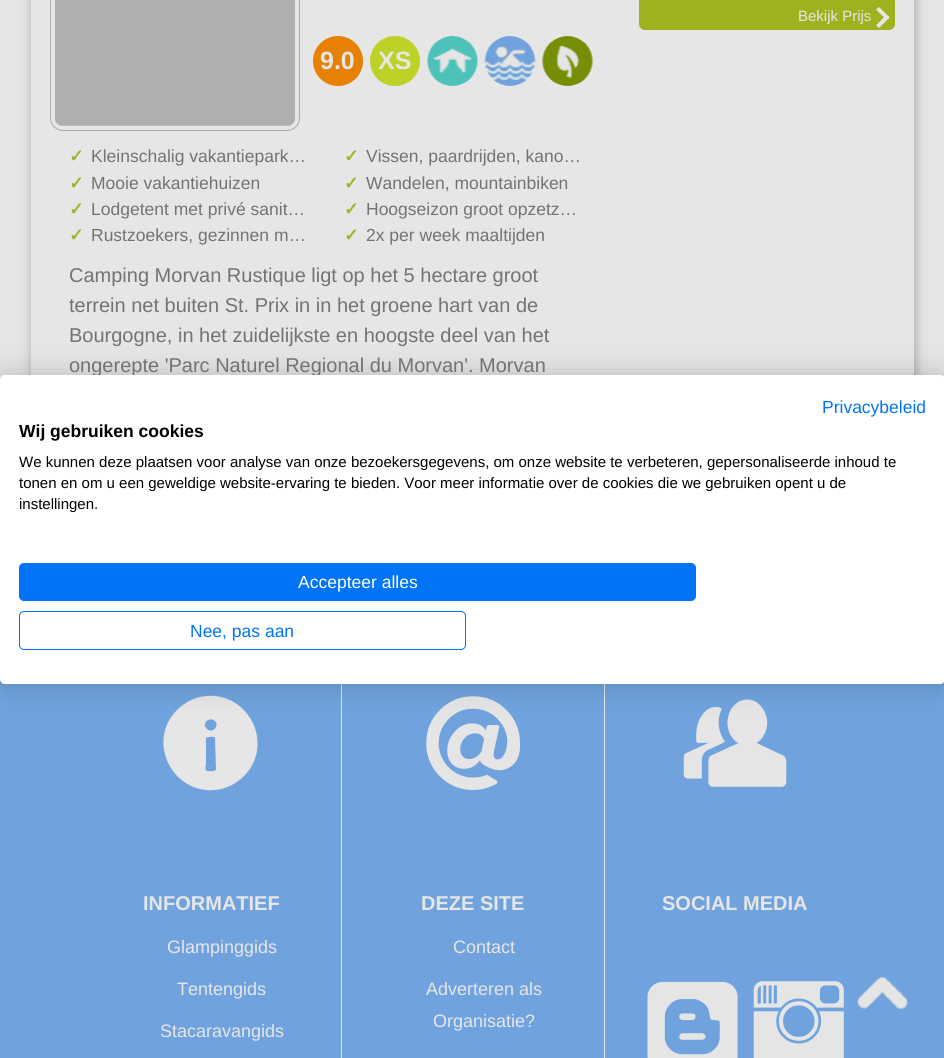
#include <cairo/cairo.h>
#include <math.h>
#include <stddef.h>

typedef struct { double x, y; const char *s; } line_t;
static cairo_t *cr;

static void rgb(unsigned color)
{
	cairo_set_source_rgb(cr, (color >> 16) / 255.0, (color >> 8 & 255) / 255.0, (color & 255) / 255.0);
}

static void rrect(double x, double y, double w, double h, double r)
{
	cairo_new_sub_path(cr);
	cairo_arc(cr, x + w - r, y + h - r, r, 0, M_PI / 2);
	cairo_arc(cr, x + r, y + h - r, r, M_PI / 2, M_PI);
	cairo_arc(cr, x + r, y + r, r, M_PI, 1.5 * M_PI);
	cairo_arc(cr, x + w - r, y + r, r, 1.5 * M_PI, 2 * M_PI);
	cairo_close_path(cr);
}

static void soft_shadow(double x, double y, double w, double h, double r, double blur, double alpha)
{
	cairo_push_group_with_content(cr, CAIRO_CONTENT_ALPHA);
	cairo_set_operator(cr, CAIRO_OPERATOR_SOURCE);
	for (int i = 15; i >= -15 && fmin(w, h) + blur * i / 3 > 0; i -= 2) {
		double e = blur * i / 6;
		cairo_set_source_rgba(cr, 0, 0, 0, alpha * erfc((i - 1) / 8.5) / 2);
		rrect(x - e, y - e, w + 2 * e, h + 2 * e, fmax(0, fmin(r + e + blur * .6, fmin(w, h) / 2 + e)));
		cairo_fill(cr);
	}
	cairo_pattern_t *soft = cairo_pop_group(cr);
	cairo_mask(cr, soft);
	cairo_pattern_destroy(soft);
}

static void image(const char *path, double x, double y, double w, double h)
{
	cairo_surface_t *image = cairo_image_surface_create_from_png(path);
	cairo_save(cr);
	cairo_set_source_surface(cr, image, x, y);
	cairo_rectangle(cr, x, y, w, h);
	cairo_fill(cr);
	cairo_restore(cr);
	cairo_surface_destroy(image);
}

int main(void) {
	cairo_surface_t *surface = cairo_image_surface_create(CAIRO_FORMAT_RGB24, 944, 1058);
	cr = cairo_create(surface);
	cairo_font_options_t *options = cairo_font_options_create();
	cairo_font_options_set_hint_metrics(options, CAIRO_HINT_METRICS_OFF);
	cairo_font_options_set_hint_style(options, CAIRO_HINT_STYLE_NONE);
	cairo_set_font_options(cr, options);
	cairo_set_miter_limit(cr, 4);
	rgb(0xe6e6e6);
	cairo_paint(cr);
	cairo_save(cr);
	cairo_set_fill_rule(cr, CAIRO_FILL_RULE_EVEN_ODD);
	cairo_new_path(cr);
	cairo_move_to(cr, 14, 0);
	cairo_line_to(cr, 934, 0);
	cairo_line_to(cr, 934, 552);
	cairo_line_to(cr, 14, 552);
	cairo_close_path(cr);
	cairo_move_to(cr, 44, -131);
	cairo_line_to(cr, 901, -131);
	cairo_curve_to(cr, 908, -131, 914, -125, 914, -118);
	cairo_line_to(cr, 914, 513);
	cairo_curve_to(cr, 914, 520, 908, 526, 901, 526);
	cairo_line_to(cr, 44, 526);
	cairo_curve_to(cr, 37, 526, 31, 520, 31, 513);
	cairo_line_to(cr, 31, -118);
	cairo_curve_to(cr, 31, -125, 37, -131, 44, -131);
	cairo_close_path(cr);
	cairo_clip(cr);
	rgb(0x2d2d48);
	soft_shadow(33, -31, 882, 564, 13, 6, 0.4);
	cairo_restore(cr);
	rgb(0xa0b120);
	rrect(639, -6, 256, 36, 6);
	cairo_fill(cr);
	rgb(0xe6e6e6);
	cairo_new_path(cr);
	cairo_move_to(cr, 879, 7);
	cairo_line_to(cr, 889.5, 17.5);
	cairo_line_to(cr, 886.5, 20);
	cairo_line_to(cr, 876, 9.5);
	cairo_close_path(cr);
	cairo_fill(cr);
	cairo_new_path(cr);
	cairo_move_to(cr, 886.5, 14.5);
	cairo_line_to(cr, 889.5, 17.5);
	cairo_line_to(cr, 879, 28);
	cairo_line_to(cr, 876, 25.5);
	cairo_close_path(cr);
	cairo_fill(cr);
	rrect(50.5, -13.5, 249, 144, 12.5);
	rgb(0xababab);
	cairo_set_line_width(cr, 1);
	cairo_stroke(cr);
	image("img/1.png", 55, 0, 240, 126);
	rgb(0xe68105);
	cairo_arc(cr, 338, 61, 25, 0, 2 * M_PI);
	cairo_fill(cr);
	rgb(0xbdd126);
	cairo_arc(cr, 395, 61, 25, 0, 2 * M_PI);
	cairo_fill(cr);
	image("img/2.png", 427, 36, 51, 50);
	image("img/3.png", 484, 36, 52, 50);
	image("img/4.png", 542, 36, 51, 50);
	rgb(0x70a3de);
	cairo_rectangle(cr, 0, 679, 944, 379);
	cairo_fill(cr);
	rgb(0xe6e6e6);
	cairo_new_path(cr);
	cairo_move_to(cr, 177, 710);
	cairo_curve_to(cr, 185, 702, 195, 697, 206, 696);
	cairo_curve_to(cr, 249, 692, 275, 745, 244, 776);
	cairo_curve_to(cr, 236, 784, 226, 789, 215, 790);
	cairo_curve_to(cr, 172, 794, 146, 741, 177, 710);
	cairo_close_path(cr);
	cairo_move_to(cr, 216, 769);
	cairo_line_to(cr, 215, 738);
	cairo_curve_to(cr, 215, 736, 210, 737, 209, 737);
	cairo_curve_to(cr, 205, 737, 206, 739, 206, 744);
	cairo_line_to(cr, 206, 764);
	cairo_curve_to(cr, 206, 765, 204, 770, 207, 771);
	cairo_curve_to(cr, 208, 771, 216, 772, 216, 769);
	cairo_close_path(cr);
	cairo_move_to(cr, 207, 729);
	cairo_curve_to(cr, 212, 734, 220, 726, 215, 721);
	cairo_curve_to(cr, 209, 716, 201, 724, 207, 729);
	cairo_close_path(cr);
	cairo_fill(cr);
	cairo_rectangle(cr, 341, 684, 1, 374);
	cairo_fill(cr);
	image("img/5.png", 426, 696, 94, 94);
	cairo_rectangle(cr, 604, 684, 1, 374);
	cairo_fill(cr);
	image("img/6.png", 683, 699, 104, 88);
	rgb(0x000000);
	soft_shadow(0, 375, 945, 309, 5, 15, 0.2);
	image("img/7.png", 647, 981, 91, 77);
	image("img/8.png", 753, 981, 91, 77);
	image("img/9.png", 857, 976, 51, 33);
	cairo_select_font_face(cr, "Liberation Sans", CAIRO_FONT_SLANT_NORMAL, CAIRO_FONT_WEIGHT_NORMAL);
	cairo_set_font_size(cr, 15);
	rgb(0xe6e6e6);
	cairo_move_to(cr, 798, 21);
	cairo_show_text(cr, "Bekijk Prijs");
	cairo_select_font_face(cr, "Liberation Sans", CAIRO_FONT_SLANT_NORMAL, CAIRO_FONT_WEIGHT_BOLD);
	cairo_set_font_size(cr, 25);
	cairo_move_to(cr, 320, 69);
	cairo_show_text(cr, "9.0");
	cairo_move_to(cr, 378, 69);
	cairo_show_text(cr, "XS");
	cairo_select_font_face(cr, "DejaVu Sans", CAIRO_FONT_SLANT_NORMAL, CAIRO_FONT_WEIGHT_BOLD);
	cairo_set_font_size(cr, 17.5);
	rgb(0xa0b120);
	cairo_move_to(cr, 69, 162);
	cairo_show_text(cr, "✓");
	cairo_select_font_face(cr, "Liberation Sans", CAIRO_FONT_SLANT_NORMAL, CAIRO_FONT_WEIGHT_NORMAL);
	rgb(0x737373);
	cairo_move_to(cr, 91, 162);
	cairo_show_text(cr, "Kleinschalig vakantiepark…");
	cairo_select_font_face(cr, "DejaVu Sans", CAIRO_FONT_SLANT_NORMAL, CAIRO_FONT_WEIGHT_BOLD);
	rgb(0xa0b120);
	cairo_move_to(cr, 69, 189);
	cairo_show_text(cr, "✓");
	cairo_select_font_face(cr, "Liberation Sans", CAIRO_FONT_SLANT_NORMAL, CAIRO_FONT_WEIGHT_NORMAL);
	rgb(0x737373);
	cairo_move_to(cr, 91, 189);
	cairo_show_text(cr, "Mooie vakantiehuizen");
	cairo_select_font_face(cr, "DejaVu Sans", CAIRO_FONT_SLANT_NORMAL, CAIRO_FONT_WEIGHT_BOLD);
	rgb(0xa0b120);
	cairo_move_to(cr, 69, 215);
	cairo_show_text(cr, "✓");
	cairo_select_font_face(cr, "Liberation Sans", CAIRO_FONT_SLANT_NORMAL, CAIRO_FONT_WEIGHT_NORMAL);
	rgb(0x737373);
	cairo_move_to(cr, 91, 215);
	cairo_show_text(cr, "Lodgetent met privé sanit…");
	cairo_select_font_face(cr, "DejaVu Sans", CAIRO_FONT_SLANT_NORMAL, CAIRO_FONT_WEIGHT_BOLD);
	rgb(0xa0b120);
	cairo_move_to(cr, 69, 241);
	cairo_show_text(cr, "✓");
	cairo_select_font_face(cr, "Liberation Sans", CAIRO_FONT_SLANT_NORMAL, CAIRO_FONT_WEIGHT_NORMAL);
	rgb(0x737373);
	cairo_move_to(cr, 91, 241);
	cairo_show_text(cr, "Rustzoekers, gezinnen m…");
	cairo_select_font_face(cr, "DejaVu Sans", CAIRO_FONT_SLANT_NORMAL, CAIRO_FONT_WEIGHT_BOLD);
	rgb(0xa0b120);
	cairo_move_to(cr, 344, 162);
	cairo_show_text(cr, "✓");
	cairo_select_font_face(cr, "Liberation Sans", CAIRO_FONT_SLANT_NORMAL, CAIRO_FONT_WEIGHT_NORMAL);
	rgb(0x737373);
	cairo_move_to(cr, 366, 162);
	cairo_show_text(cr, "Vissen, paardrijden, kano…");
	cairo_select_font_face(cr, "DejaVu Sans", CAIRO_FONT_SLANT_NORMAL, CAIRO_FONT_WEIGHT_BOLD);
	rgb(0xa0b120);
	cairo_move_to(cr, 344, 189);
	cairo_show_text(cr, "✓");
	cairo_select_font_face(cr, "Liberation Sans", CAIRO_FONT_SLANT_NORMAL, CAIRO_FONT_WEIGHT_NORMAL);
	rgb(0x737373);
	cairo_move_to(cr, 366, 189);
	cairo_show_text(cr, "Wandelen, mountainbiken");
	cairo_select_font_face(cr, "DejaVu Sans", CAIRO_FONT_SLANT_NORMAL, CAIRO_FONT_WEIGHT_BOLD);
	rgb(0xa0b120);
	cairo_move_to(cr, 344, 215);
	cairo_show_text(cr, "✓");
	cairo_select_font_face(cr, "Liberation Sans", CAIRO_FONT_SLANT_NORMAL, CAIRO_FONT_WEIGHT_NORMAL);
	rgb(0x737373);
	cairo_move_to(cr, 366, 215);
	cairo_show_text(cr, "Hoogseizon groot opzetz…");
	cairo_select_font_face(cr, "DejaVu Sans", CAIRO_FONT_SLANT_NORMAL, CAIRO_FONT_WEIGHT_BOLD);
	rgb(0xa0b120);
	cairo_move_to(cr, 344, 241);
	cairo_show_text(cr, "✓");
	cairo_select_font_face(cr, "Liberation Sans", CAIRO_FONT_SLANT_NORMAL, CAIRO_FONT_WEIGHT_NORMAL);
	rgb(0x737373);
	cairo_move_to(cr, 366, 241);
	cairo_show_text(cr, "2x per week maaltijden");
	cairo_set_font_size(cr, 20);
	{
		static const line_t items[] = {
			{69, 282, "Camping Morvan Rustique ligt op het 5 hectare groot"},
			{69, 312, "terrein net buiten St. Prix in in het groene hart van de"},
			{69, 342, "Bourgogne, in het zuidelijkste en hoogste deel van het"},
			{69, 372, "ongerepte 'Parc Naturel Regional du Morvan'. Morvan"},
		};
		for (size_t i = 0; i < sizeof items / sizeof *items; i++) {
			cairo_move_to(cr, items[i].x, items[i].y);
			cairo_show_text(cr, items[i].s);
		}
	}
	rgb(0xffffff);
	rrect(0, 375, 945, 309, 5);
	cairo_fill(cr);
	cairo_set_font_size(cr, 17.5);
	rgb(0x0073f7);
	cairo_move_to(cr, 822, 413);
	cairo_show_text(cr, "Privacybeleid");
	cairo_select_font_face(cr, "Liberation Sans", CAIRO_FONT_SLANT_NORMAL, CAIRO_FONT_WEIGHT_BOLD);
	rgb(0x000000);
	cairo_move_to(cr, 19, 437);
	cairo_show_text(cr, "Wij gebruiken cookies");
	cairo_select_font_face(cr, "Liberation Sans", CAIRO_FONT_SLANT_NORMAL, CAIRO_FONT_WEIGHT_NORMAL);
	cairo_set_font_size(cr, 15);
	{
		static const line_t items[] = {
			{19, 467, "We kunnen deze plaatsen voor analyse van onze bezoekersgegevens, om onze website te verbeteren, gepersonaliseerde inhoud te"},
			{19, 488, "tonen en om u een geweldige website-ervaring te bieden. Voor meer informatie over de cookies die we gebruiken opent u de"},
			{19, 509, "instellingen."},
		};
		for (size_t i = 0; i < sizeof items / sizeof *items; i++) {
			cairo_move_to(cr, items[i].x, items[i].y);
			cairo_show_text(cr, items[i].s);
		}
	}
	rgb(0x0073f7);
	rrect(19.5, 563.5, 676, 37, 4.5);
	cairo_fill_preserve(cr);
	cairo_stroke(cr);
	cairo_set_font_size(cr, 17.5);
	rgb(0xffffff);
	cairo_move_to(cr, 298, 588);
	cairo_show_text(cr, "Accepteer alles");
	rrect(19.5, 611.5, 446, 38, 4.5);
	rgb(0x0073f7);
	cairo_stroke(cr);
	cairo_move_to(cr, 190, 637);
	cairo_show_text(cr, "Nee, pas aan");
	cairo_select_font_face(cr, "Liberation Sans", CAIRO_FONT_SLANT_NORMAL, CAIRO_FONT_WEIGHT_BOLD);
	cairo_set_font_size(cr, 20);
	rgb(0xe6e6e6);
	cairo_move_to(cr, 143, 910);
	cairo_show_text(cr, "INFORMATIEF");
	cairo_select_font_face(cr, "Liberation Sans", CAIRO_FONT_SLANT_NORMAL, CAIRO_FONT_WEIGHT_NORMAL);
	cairo_set_font_size(cr, 18);
	{
		static const line_t items[] = {
			{167, 953, "Glampinggids"},
			{177, 995, "Tentengids"},
			{160, 1037, "Stacaravangids"},
		};
		for (size_t i = 0; i < sizeof items / sizeof *items; i++) {
			cairo_move_to(cr, items[i].x, items[i].y);
			cairo_show_text(cr, items[i].s);
		}
	}
	cairo_select_font_face(cr, "Liberation Sans", CAIRO_FONT_SLANT_NORMAL, CAIRO_FONT_WEIGHT_BOLD);
	cairo_set_font_size(cr, 20);
	cairo_move_to(cr, 421, 910);
	cairo_show_text(cr, "DEZE SITE");
	cairo_select_font_face(cr, "Liberation Sans", CAIRO_FONT_SLANT_NORMAL, CAIRO_FONT_WEIGHT_NORMAL);
	cairo_set_font_size(cr, 18);
	{
		static const line_t items[] = {
			{453, 953, "Contact"},
			{426, 995, "Adverteren als"},
			{433, 1027, "Organisatie?"},
		};
		for (size_t i = 0; i < sizeof items / sizeof *items; i++) {
			cairo_move_to(cr, items[i].x, items[i].y);
			cairo_show_text(cr, items[i].s);
		}
	}
	cairo_select_font_face(cr, "Liberation Sans", CAIRO_FONT_SLANT_NORMAL, CAIRO_FONT_WEIGHT_BOLD);
	cairo_set_font_size(cr, 20);
	cairo_move_to(cr, 662, 910);
	cairo_show_text(cr, "SOCIAL MEDIA");
	cairo_surface_write_to_png(surface, "page.png");
	cairo_font_options_destroy(options);
	cairo_destroy(cr);
	cairo_surface_destroy(surface);
	return 0;
}
